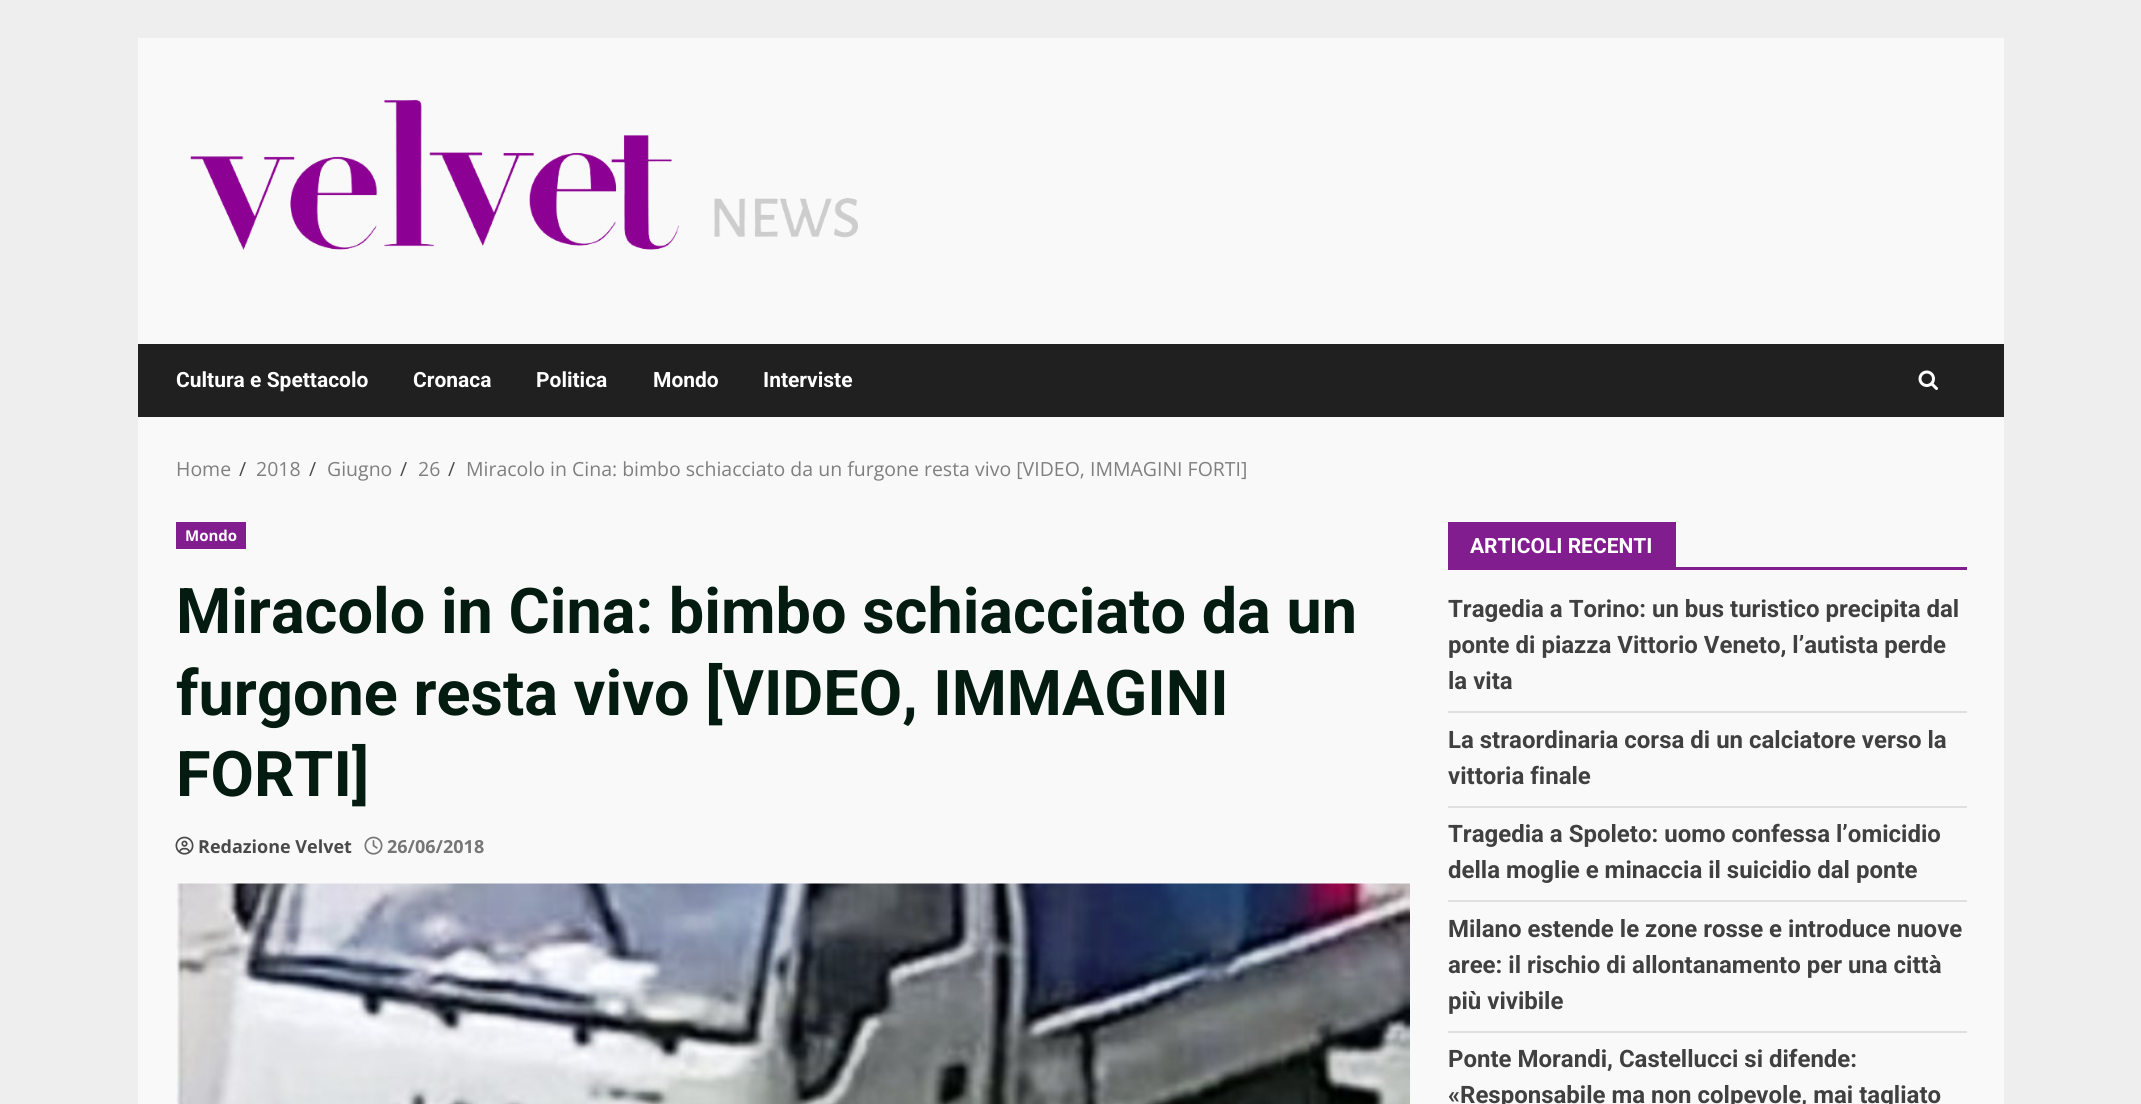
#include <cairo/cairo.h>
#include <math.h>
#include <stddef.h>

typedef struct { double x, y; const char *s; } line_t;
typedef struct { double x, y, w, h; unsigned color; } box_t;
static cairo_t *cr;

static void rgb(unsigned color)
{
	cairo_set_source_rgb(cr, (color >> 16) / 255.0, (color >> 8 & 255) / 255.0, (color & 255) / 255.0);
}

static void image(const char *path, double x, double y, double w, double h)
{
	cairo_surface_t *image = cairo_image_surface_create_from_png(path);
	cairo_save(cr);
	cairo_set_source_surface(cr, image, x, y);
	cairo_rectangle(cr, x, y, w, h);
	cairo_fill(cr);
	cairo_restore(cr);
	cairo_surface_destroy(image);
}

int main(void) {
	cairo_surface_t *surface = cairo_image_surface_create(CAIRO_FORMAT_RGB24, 2141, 1104);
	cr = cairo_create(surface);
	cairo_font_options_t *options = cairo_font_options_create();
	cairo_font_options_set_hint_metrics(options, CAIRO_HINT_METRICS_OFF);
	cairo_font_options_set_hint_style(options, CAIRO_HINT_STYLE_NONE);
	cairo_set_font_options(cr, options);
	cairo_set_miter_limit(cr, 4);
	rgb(0xeeeeee);
	cairo_paint(cr);
	rgb(0xf9f9f9);
	cairo_rectangle(cr, 138, 38, 1866, 1066);
	cairo_fill(cr);
	image("img/1.png", 190, 99, 668, 151);
	rgb(0x202020);
	cairo_rectangle(cr, 138, 344, 1866, 73);
	cairo_fill(cr);
	image("img/2.png", 1918, 370, 20, 20);
	rgb(0x821d8f);
	cairo_rectangle(cr, 176, 522, 70, 27);
	cairo_fill(cr);
	image("img/3.png", 175, 836, 19, 19);
	image("img/4.png", 364, 836, 19, 19);
	image("img/5.png", 176, 883, 1234, 221);
	{
		static const box_t items[] = {
			{1448, 567, 519, 3, 0x821d8f},
			{1448, 522, 228, 45, 0x821d8f},
			{1448, 711, 519, 2, 0xe0e0e0},
			{1448, 806, 519, 2, 0xe0e0e0},
			{1448, 900, 519, 2, 0xe0e0e0},
			{1448, 1031, 519, 2, 0xe0e0e0},
		};
		for (size_t i = 0; i < sizeof items / sizeof *items; i++) {
			rgb(items[i].color);
			cairo_rectangle(cr, items[i].x, items[i].y, items[i].w, items[i].h);
			cairo_fill(cr);
		}
	}
	cairo_select_font_face(cr, "Roboto", CAIRO_FONT_SLANT_NORMAL, CAIRO_FONT_WEIGHT_BOLD);
	cairo_set_font_size(cr, 21);
	rgb(0xffffff);
	{
		static const line_t items[] = {
			{176, 387, "Cultura e Spettacolo"},
			{413, 387, "Cronaca"},
			{536, 387, "Politica"},
			{653, 387, "Mondo"},
			{763, 387, "Interviste"},
		};
		for (size_t i = 0; i < sizeof items / sizeof *items; i++) {
			cairo_move_to(cr, items[i].x, items[i].y);
			cairo_show_text(cr, items[i].s);
		}
	}
	cairo_select_font_face(cr, "Open Sans", CAIRO_FONT_SLANT_NORMAL, CAIRO_FONT_WEIGHT_NORMAL);
	cairo_set_font_size(cr, 19.5);
	rgb(0x7f7f7f);
	cairo_move_to(cr, 176, 476);
	cairo_show_text(cr, "Home");
	rgb(0x4a4a4a);
	cairo_move_to(cr, 239, 476);
	cairo_show_text(cr, "/");
	rgb(0x7f7f7f);
	cairo_move_to(cr, 256, 476);
	cairo_show_text(cr, "2018");
	rgb(0x4a4a4a);
	cairo_move_to(cr, 309, 476);
	cairo_show_text(cr, "/");
	rgb(0x7f7f7f);
	cairo_move_to(cr, 327, 476);
	cairo_show_text(cr, "Giugno");
	rgb(0x4a4a4a);
	cairo_move_to(cr, 400, 476);
	cairo_show_text(cr, "/");
	rgb(0x7f7f7f);
	cairo_move_to(cr, 418, 476);
	cairo_show_text(cr, "26");
	rgb(0x4a4a4a);
	cairo_move_to(cr, 448, 476);
	cairo_show_text(cr, "/");
	rgb(0x7f7f7f);
	cairo_move_to(cr, 466, 476);
	cairo_show_text(cr, "Miracolo in Cina: bimbo schiacciato da un furgone resta vivo [VIDEO, IMMAGINI FORTI]");
	cairo_select_font_face(cr, "Open Sans", CAIRO_FONT_SLANT_NORMAL, CAIRO_FONT_WEIGHT_BOLD);
	cairo_set_font_size(cr, 15);
	rgb(0xffffff);
	cairo_move_to(cr, 185, 541);
	cairo_show_text(cr, "Mondo");
	cairo_select_font_face(cr, "Roboto", CAIRO_FONT_SLANT_NORMAL, CAIRO_FONT_WEIGHT_BOLD);
	cairo_set_font_size(cr, 63);
	rgb(0x031b11);
	{
		static const line_t items[] = {
			{176, 633, "Miracolo in Cina: bimbo schiacciato da un"},
			{176, 715, "furgone resta vivo [VIDEO, IMMAGINI"},
			{176, 796, "FORTI]"},
		};
		for (size_t i = 0; i < sizeof items / sizeof *items; i++) {
			cairo_move_to(cr, items[i].x, items[i].y);
			cairo_show_text(cr, items[i].s);
		}
	}
	cairo_select_font_face(cr, "Open Sans", CAIRO_FONT_SLANT_NORMAL, CAIRO_FONT_WEIGHT_BOLD);
	cairo_set_font_size(cr, 18);
	rgb(0x4a4a4a);
	cairo_move_to(cr, 198, 853);
	cairo_show_text(cr, "Redazione Velvet");
	rgb(0x767676);
	cairo_move_to(cr, 387, 853);
	cairo_show_text(cr, "26/06/2018");
	cairo_select_font_face(cr, "Roboto", CAIRO_FONT_SLANT_NORMAL, CAIRO_FONT_WEIGHT_BOLD);
	cairo_set_font_size(cr, 21);
	rgb(0xffffff);
	cairo_move_to(cr, 1470, 553);
	cairo_show_text(cr, "ARTICOLI RECENTI");
	cairo_set_font_size(cr, 24);
	rgb(0x404040);
	{
		static const line_t items[] = {
			{1448, 617, "Tragedia a Torino: un bus turistico precipita dal"},
			{1448, 653, "ponte di piazza Vittorio Veneto, l’autista perde"},
			{1448, 689, "la vita"},
			{1448, 748, "La straordinaria corsa di un calciatore verso la"},
			{1448, 784, "vittoria finale"},
			{1448, 842, "Tragedia a Spoleto: uomo confessa l’omicidio"},
			{1448, 878, "della moglie e minaccia il suicidio dal ponte"},
			{1448, 937, "Milano estende le zone rosse e introduce nuove"},
			{1448, 973, "aree: il rischio di allontanamento per una città"},
			{1448, 1009, "più vivibile"},
			{1448, 1067, "Ponte Morandi, Castellucci si difende:"},
			{1448, 1103, "«Responsabile ma non colpevole, mai tagliato"},
		};
		for (size_t i = 0; i < sizeof items / sizeof *items; i++) {
			cairo_move_to(cr, items[i].x, items[i].y);
			cairo_show_text(cr, items[i].s);
		}
	}
	cairo_surface_write_to_png(surface, "page.png");
	cairo_font_options_destroy(options);
	cairo_destroy(cr);
	cairo_surface_destroy(surface);
	return 0;
}
